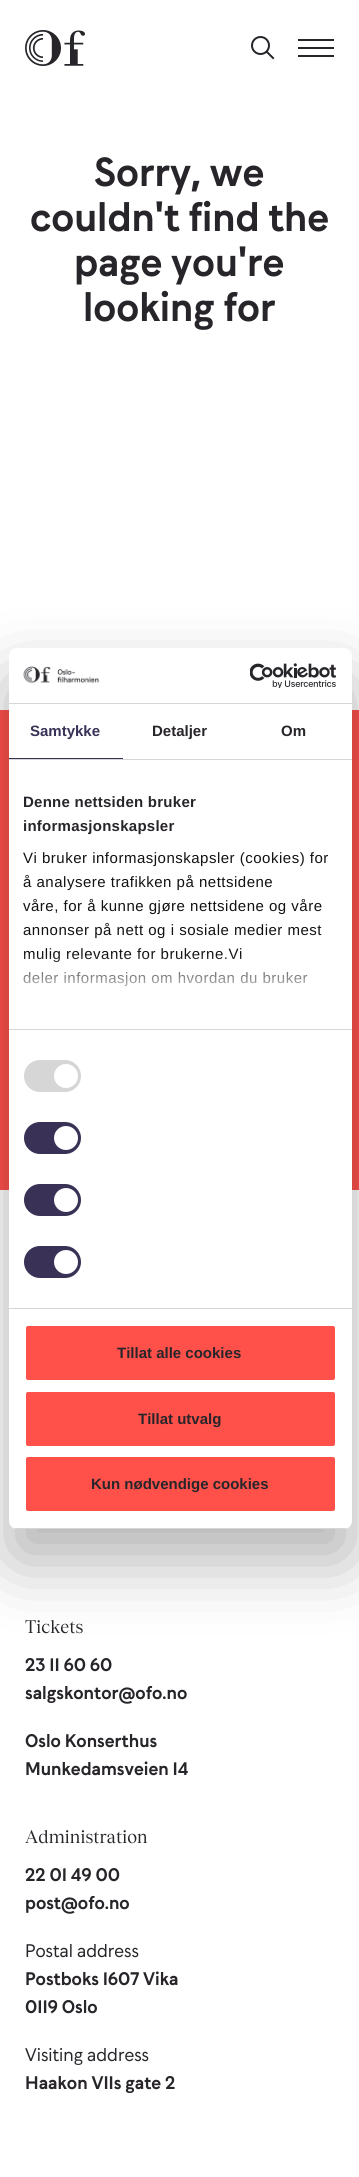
#include <cairo/cairo.h>
#include <math.h>
#include <stddef.h>

typedef struct { double x, y; const char *s; } line_t;
typedef struct { double x, y, w, h; unsigned color; } box_t;
static cairo_t *cr;

static void rgb(unsigned color)
{
	cairo_set_source_rgb(cr, (color >> 16) / 255.0, (color >> 8 & 255) / 255.0, (color & 255) / 255.0);
}

static void tracked(double x, double y, const char *s, double letter, double word)
{
	cairo_move_to(cr, x, y);
	while (*s) {
		char ch[5] = {0};
		int n = 0;
		do ch[n++] = *s++; while ((*s & 0xC0) == 0x80);
		cairo_show_text(cr, ch);
		cairo_rel_move_to(cr, letter + word * (*ch == ' '), 0);
	}
}

static void rrect(double x, double y, double w, double h, double r)
{
	cairo_new_sub_path(cr);
	cairo_arc(cr, x + w - r, y + h - r, r, 0, M_PI / 2);
	cairo_arc(cr, x + r, y + h - r, r, M_PI / 2, M_PI);
	cairo_arc(cr, x + r, y + r, r, M_PI, 1.5 * M_PI);
	cairo_arc(cr, x + w - r, y + r, r, 1.5 * M_PI, 2 * M_PI);
	cairo_close_path(cr);
}

static void soft_shadow(double x, double y, double w, double h, double r, double blur, double alpha)
{
	cairo_push_group_with_content(cr, CAIRO_CONTENT_ALPHA);
	cairo_set_operator(cr, CAIRO_OPERATOR_SOURCE);
	for (int i = 15; i >= -15 && fmin(w, h) + blur * i / 3 > 0; i -= 2) {
		double e = blur * i / 6;
		cairo_set_source_rgba(cr, 0, 0, 0, alpha * erfc((i - 1) / 8.5) / 2);
		rrect(x - e, y - e, w + 2 * e, h + 2 * e, fmax(0, fmin(r + e + blur * .6, fmin(w, h) / 2 + e)));
		cairo_fill(cr);
	}
	cairo_pattern_t *soft = cairo_pop_group(cr);
	cairo_mask(cr, soft);
	cairo_pattern_destroy(soft);
}

static void image(const char *path, double x, double y, double w, double h)
{
	cairo_surface_t *image = cairo_image_surface_create_from_png(path);
	cairo_save(cr);
	cairo_set_source_surface(cr, image, x, y);
	cairo_rectangle(cr, x, y, w, h);
	cairo_fill(cr);
	cairo_restore(cr);
	cairo_surface_destroy(image);
}

int main(void) {
	cairo_surface_t *surface = cairo_image_surface_create(CAIRO_FORMAT_RGB24, 359, 2177);
	cr = cairo_create(surface);
	cairo_font_options_t *options = cairo_font_options_create();
	cairo_font_options_set_hint_metrics(options, CAIRO_HINT_METRICS_OFF);
	cairo_font_options_set_hint_style(options, CAIRO_HINT_STYLE_NONE);
	cairo_set_font_options(cr, options);
	cairo_set_miter_limit(cr, 4);
	cairo_pattern_t *gradient;
	rgb(0xffffff);
	cairo_paint(cr);
	image("img/1.png", 25, 30, 60, 36);
	image("img/2.png", 251, 36, 24, 24);
	{
		static const box_t items[] = {
			{298, 39, 36, 2, 0x28252a},
			{298, 47, 36, 2, 0x28252a},
			{298, 55, 36, 2, 0x28252a},
			{0, 710, 359, 480, 0xff514a},
		};
		for (size_t i = 0; i < sizeof items / sizeof *items; i++) {
			rgb(items[i].color);
			cairo_rectangle(cr, items[i].x, items[i].y, items[i].w, items[i].h);
			cairo_fill(cr);
		}
	}
	rgb(0x000000);
	soft_shadow(9, 680, 343, 881, 8, 34, 0.3);
	rgb(0xffffff);
	rrect(9, 648, 343, 881, 8);
	cairo_fill(cr);
	rgb(0xd6d6d6);
	cairo_rectangle(cr, 9, 703, 343, 1);
	cairo_fill(cr);
	image("img/3.png", 23, 666, 77, 17);
	image("img/4.png", 250, 663, 86, 25);
	{
		static const box_t items[] = {
			{9, 759, 343, 1, 0xd6d6d6},
			{9, 758, 114, 1, 0x393256},
			{9, 1029, 343, 1, 0xd6d6d6},
			{9, 1308, 343, 1, 0xd6d6d6},
		};
		for (size_t i = 0; i < sizeof items / sizeof *items; i++) {
			rgb(items[i].color);
			cairo_rectangle(cr, items[i].x, items[i].y, items[i].w, items[i].h);
			cairo_fill(cr);
		}
	}
	rrect(24, 1060, 57, 32, 16);
	cairo_fill(cr);
	rgb(0xffffff);
	cairo_arc(cr, 66, 1076, 12, 0, 2 * M_PI);
	cairo_fill(cr);
	rgb(0x393256);
	rrect(24, 1122, 57, 32, 16);
	cairo_fill(cr);
	rgb(0xffffff);
	cairo_arc(cr, 66, 1138, 12, 0, 2 * M_PI);
	cairo_fill(cr);
	rgb(0x393256);
	rrect(24, 1184, 57, 32, 16);
	cairo_fill(cr);
	rgb(0xffffff);
	cairo_arc(cr, 66, 1200, 12, 0, 2 * M_PI);
	cairo_fill(cr);
	rgb(0x393256);
	rrect(24, 1246, 57, 32, 16);
	cairo_fill(cr);
	rgb(0xffffff);
	cairo_arc(cr, 66, 1262, 12, 0, 2 * M_PI);
	cairo_fill(cr);
	cairo_save(cr);
	rrect(9, 648, 343, 881, 8);
	cairo_clip(cr);
	rgb(0xd6d6d6);
	cairo_rectangle(cr, 9, 1528, 343, 1);
	cairo_fill(cr);
	cairo_restore(cr);
	rgb(0xff514a);
	rrect(25, 1325, 311, 56, 3);
	cairo_fill_preserve(cr);
	rgb(0xffffff);
	cairo_stroke(cr);
	rgb(0xff514a);
	rrect(25, 1391, 311, 56, 3);
	cairo_fill_preserve(cr);
	rgb(0xffffff);
	cairo_stroke(cr);
	rgb(0xff514a);
	rrect(25, 1456, 311, 56, 3);
	cairo_fill_preserve(cr);
	rgb(0xffffff);
	cairo_stroke(cr);
	cairo_select_font_face(cr, "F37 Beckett", CAIRO_FONT_SLANT_NORMAL, CAIRO_FONT_WEIGHT_BOLD);
	cairo_set_font_size(cr, 40);
	rgb(0x28252a);
	{
		static const line_t items[] = {
			{94, 186, "Sorry, we"},
			{30, 231, "couldn't find the"},
			{74, 276, "page you're"},
			{83, 321, "looking for"},
		};
		for (size_t i = 0; i < sizeof items / sizeof *items; i++) {
			cairo_move_to(cr, items[i].x, items[i].y);
			cairo_show_text(cr, items[i].s);
		}
	}
	cairo_select_font_face(cr, "Liberation Sans", CAIRO_FONT_SLANT_NORMAL, CAIRO_FONT_WEIGHT_BOLD);
	cairo_set_font_size(cr, 15);
	rgb(0x393256);
	cairo_move_to(cr, 30, 736);
	cairo_show_text(cr, "Samtykke");
	rgb(0x28252a);
	cairo_move_to(cr, 152, 736);
	cairo_show_text(cr, "Detaljer");
	cairo_move_to(cr, 281, 736);
	cairo_show_text(cr, "Om");
	tracked(23, 807, "Denne nettsiden bruker", 0.25, 0);
	tracked(23, 831, "informasjonskapsler", 0.25, 0);
	cairo_select_font_face(cr, "Liberation Sans", CAIRO_FONT_SLANT_NORMAL, CAIRO_FONT_WEIGHT_NORMAL);
	rgb(0x121212);
	{
		static const line_t items[] = {
			{23, 863, "Vi bruker informasjonskapsler (cookies) for"},
			{23, 887, "å analysere trafikken på nettsidene"},
			{23, 911, "våre, for å kunne gjøre nettsidene og våre"},
			{23, 935, "annonser på nett og i sosiale medier mest"},
			{23, 959, "mulig relevante for brukerne.Vi"},
			{23, 983, "deler informasjon om hvordan du bruker"},
		};
		for (size_t i = 0; i < sizeof items / sizeof *items; i++) {
			tracked(items[i].x, items[i].y, items[i].s, 0.5, 0);
		}
	}
	gradient = cairo_pattern_create_linear(174, 1029, 174, 954);
	cairo_pattern_add_color_stop_rgba(gradient, 0, 1, 1, 1, 1);
	cairo_pattern_add_color_stop_rgba(gradient, 0.5, 1, 1, 1, 0.8);
	cairo_pattern_add_color_stop_rgba(gradient, 1, 1, 1, 1, 0);
	cairo_set_source(cr, gradient);
	cairo_pattern_destroy(gradient);
	cairo_rectangle(cr, 23, 955, 285, 32);
	cairo_fill(cr);
	cairo_select_font_face(cr, "Liberation Sans", CAIRO_FONT_SLANT_NORMAL, CAIRO_FONT_WEIGHT_BOLD);
	rgb(0x28252a);
	{
		static const line_t items[] = {
			{117, 1358, "Tillat alle cookies"},
			{138, 1424, "Tillat utvalg"},
			{91, 1489, "Kun nødvendige cookies"},
		};
		for (size_t i = 0; i < sizeof items / sizeof *items; i++) {
			cairo_move_to(cr, items[i].x, items[i].y);
			cairo_show_text(cr, items[i].s);
		}
	}
	cairo_select_font_face(cr, "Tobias", CAIRO_FONT_SLANT_NORMAL, CAIRO_FONT_WEIGHT_NORMAL);
	cairo_set_font_size(cr, 18);
	cairo_move_to(cr, 25, 1633);
	cairo_show_text(cr, "Tickets");
	cairo_select_font_face(cr, "F37 Beckett", CAIRO_FONT_SLANT_NORMAL, CAIRO_FONT_WEIGHT_BOLD);
	{
		static const line_t items[] = {
			{25, 1671, "23 11 60 60"},
			{25, 1699, "salgskontor@ofo.no"},
			{25, 1747, "Oslo Konserthus"},
			{25, 1775, "Munkedamsveien 14"},
		};
		for (size_t i = 0; i < sizeof items / sizeof *items; i++) {
			cairo_move_to(cr, items[i].x, items[i].y);
			cairo_show_text(cr, items[i].s);
		}
	}
	cairo_select_font_face(cr, "Tobias", CAIRO_FONT_SLANT_NORMAL, CAIRO_FONT_WEIGHT_NORMAL);
	cairo_move_to(cr, 25, 1843);
	cairo_show_text(cr, "Administration");
	cairo_select_font_face(cr, "F37 Beckett", CAIRO_FONT_SLANT_NORMAL, CAIRO_FONT_WEIGHT_BOLD);
	cairo_move_to(cr, 25, 1881);
	cairo_show_text(cr, "22 01 49 00");
	cairo_move_to(cr, 25, 1909);
	cairo_show_text(cr, "post@ofo.no");
	cairo_select_font_face(cr, "F37 Beckett", CAIRO_FONT_SLANT_NORMAL, CAIRO_FONT_WEIGHT_NORMAL);
	cairo_move_to(cr, 25, 1957);
	cairo_show_text(cr, "Postal address");
	cairo_select_font_face(cr, "F37 Beckett", CAIRO_FONT_SLANT_NORMAL, CAIRO_FONT_WEIGHT_BOLD);
	cairo_move_to(cr, 25, 1985);
	cairo_show_text(cr, "Postboks 1607 Vika");
	cairo_move_to(cr, 25, 2013);
	cairo_show_text(cr, "0119 Oslo");
	cairo_select_font_face(cr, "F37 Beckett", CAIRO_FONT_SLANT_NORMAL, CAIRO_FONT_WEIGHT_NORMAL);
	cairo_move_to(cr, 25, 2061);
	cairo_show_text(cr, "Visiting address");
	cairo_select_font_face(cr, "F37 Beckett", CAIRO_FONT_SLANT_NORMAL, CAIRO_FONT_WEIGHT_BOLD);
	cairo_move_to(cr, 25, 2089);
	cairo_show_text(cr, "Haakon VIIs gate 2");
	cairo_surface_write_to_png(surface, "page.png");
	cairo_font_options_destroy(options);
	cairo_destroy(cr);
	cairo_surface_destroy(surface);
	return 0;
}
